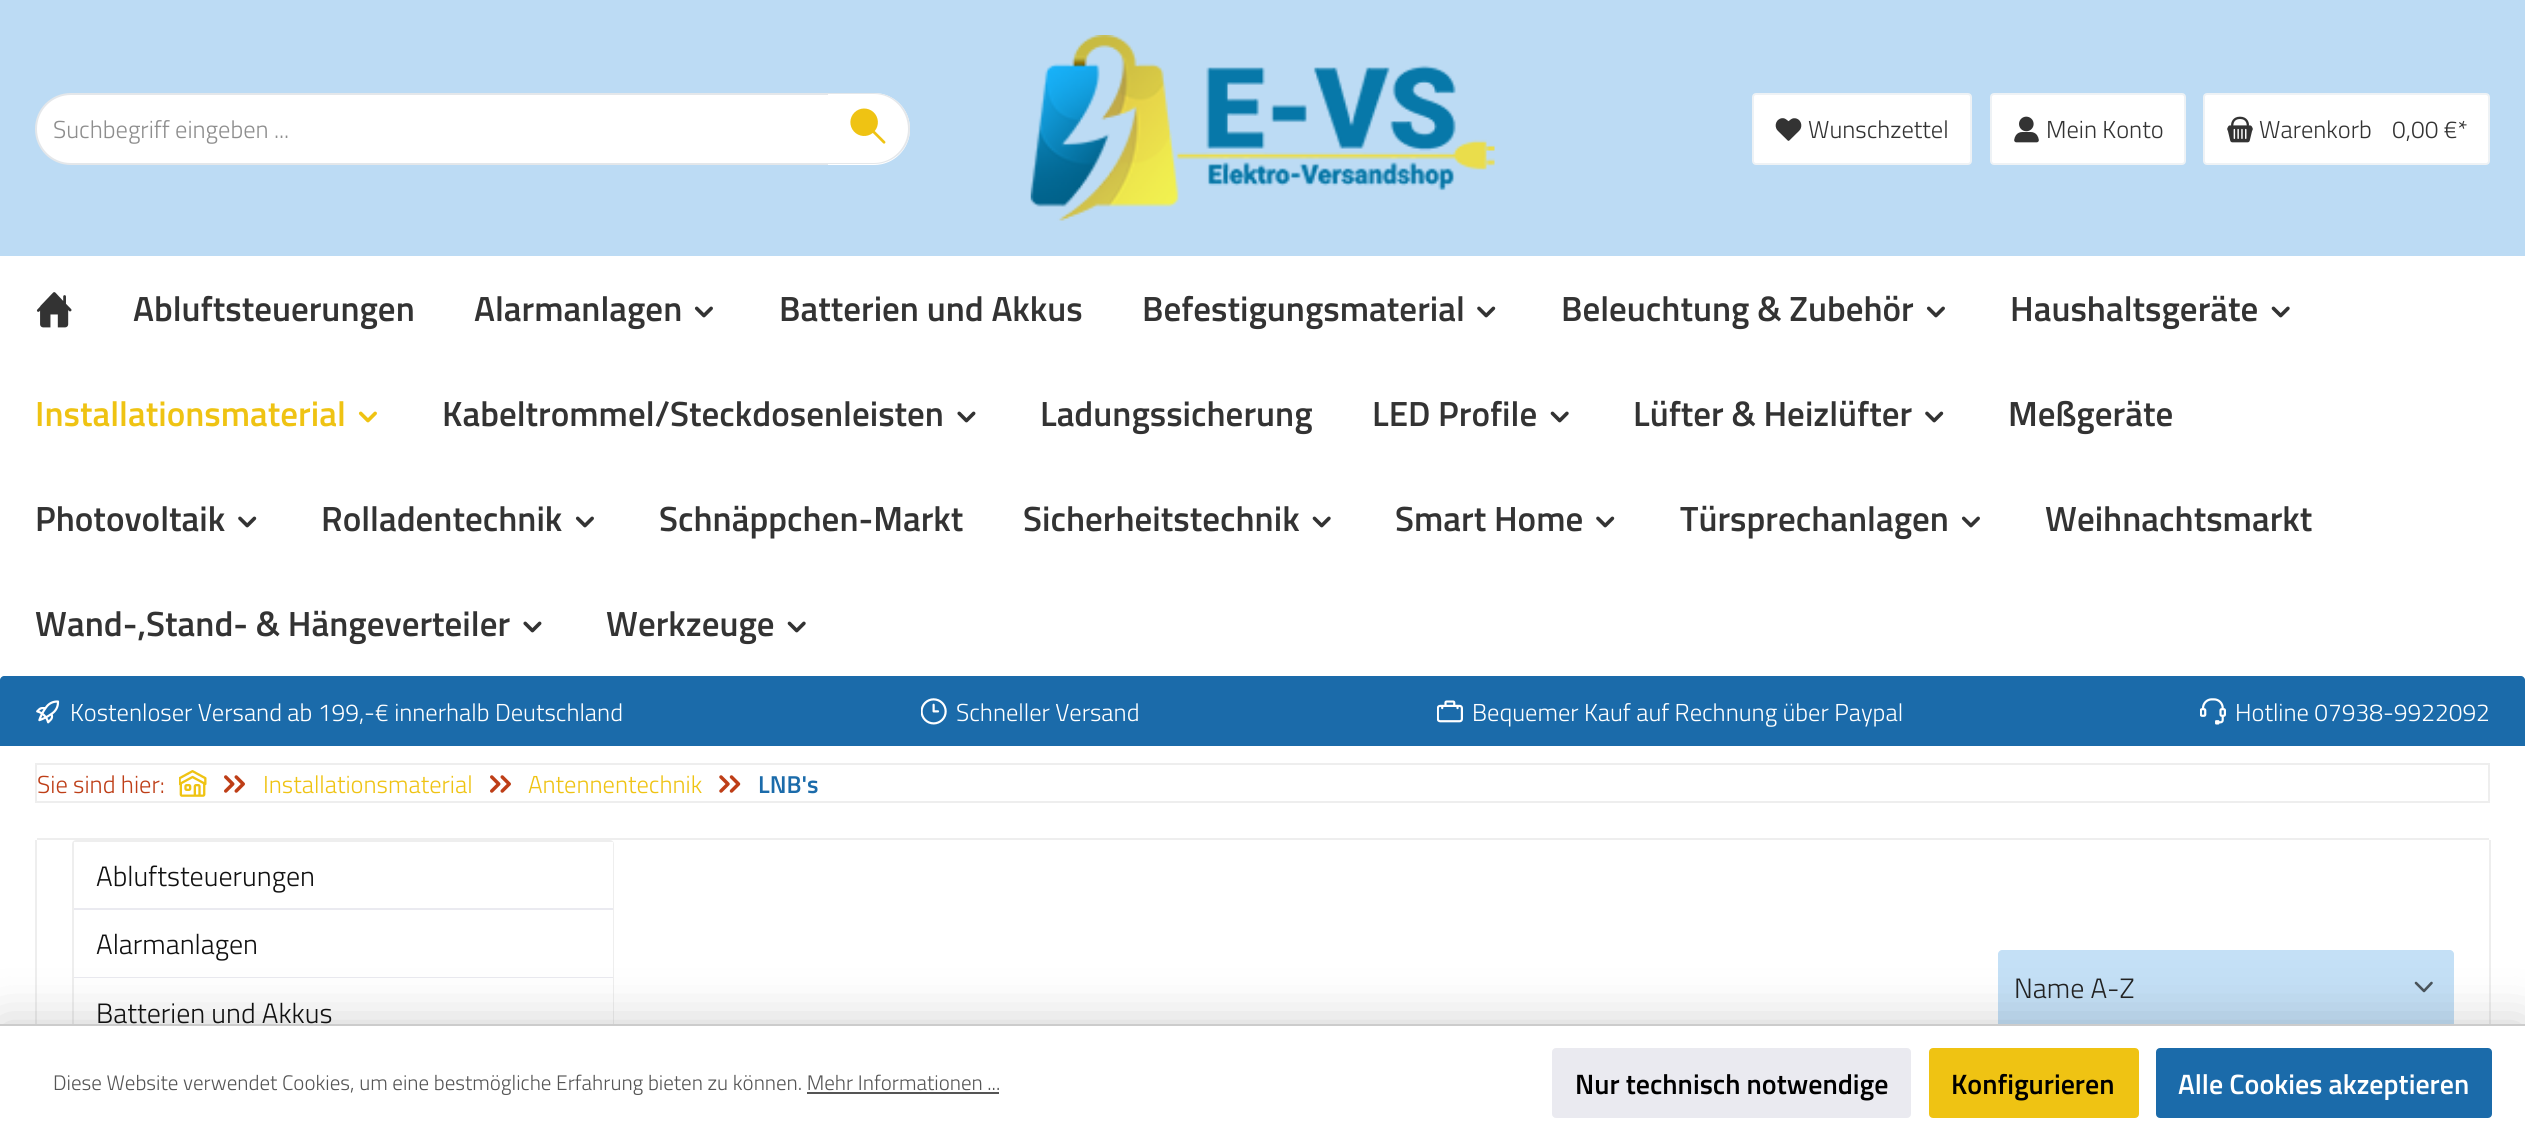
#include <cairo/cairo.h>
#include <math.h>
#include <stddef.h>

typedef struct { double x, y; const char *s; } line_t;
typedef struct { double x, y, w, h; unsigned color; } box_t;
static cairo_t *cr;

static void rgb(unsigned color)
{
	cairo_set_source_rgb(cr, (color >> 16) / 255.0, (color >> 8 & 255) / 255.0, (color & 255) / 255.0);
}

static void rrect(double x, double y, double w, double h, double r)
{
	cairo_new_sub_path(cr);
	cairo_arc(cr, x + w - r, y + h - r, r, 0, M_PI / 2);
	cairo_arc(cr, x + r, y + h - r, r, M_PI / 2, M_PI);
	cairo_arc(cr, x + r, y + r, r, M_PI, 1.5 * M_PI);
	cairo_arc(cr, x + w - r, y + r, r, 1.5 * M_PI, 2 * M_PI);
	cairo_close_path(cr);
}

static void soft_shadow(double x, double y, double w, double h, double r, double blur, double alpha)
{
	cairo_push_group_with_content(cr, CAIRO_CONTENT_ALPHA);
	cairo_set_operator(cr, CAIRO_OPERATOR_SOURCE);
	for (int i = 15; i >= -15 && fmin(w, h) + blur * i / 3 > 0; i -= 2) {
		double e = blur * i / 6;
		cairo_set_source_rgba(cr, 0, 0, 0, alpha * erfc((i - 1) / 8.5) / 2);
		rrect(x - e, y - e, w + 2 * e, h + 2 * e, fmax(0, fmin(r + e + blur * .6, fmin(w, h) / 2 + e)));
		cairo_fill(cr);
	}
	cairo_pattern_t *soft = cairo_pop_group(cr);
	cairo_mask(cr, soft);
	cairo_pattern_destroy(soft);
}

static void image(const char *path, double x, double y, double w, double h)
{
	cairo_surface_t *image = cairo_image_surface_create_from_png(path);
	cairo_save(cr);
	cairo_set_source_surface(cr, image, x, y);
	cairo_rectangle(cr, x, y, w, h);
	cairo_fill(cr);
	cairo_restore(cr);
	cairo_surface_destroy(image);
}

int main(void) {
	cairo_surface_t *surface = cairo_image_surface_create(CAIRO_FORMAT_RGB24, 2525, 1141);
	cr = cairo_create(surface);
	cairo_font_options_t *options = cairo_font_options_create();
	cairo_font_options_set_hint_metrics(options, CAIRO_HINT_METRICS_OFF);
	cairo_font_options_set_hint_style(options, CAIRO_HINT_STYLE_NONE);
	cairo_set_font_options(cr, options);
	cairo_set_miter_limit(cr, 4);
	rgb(0xffffff);
	cairo_paint(cr);
	rgb(0xbcdbf4);
	cairo_rectangle(cr, 0, 0, 2525, 256);
	cairo_fill(cr);
	rgb(0xffffff);
	cairo_new_path(cr);
	cairo_move_to(cr, 71, 94);
	cairo_line_to(cr, 829, 94);
	cairo_line_to(cr, 829, 164);
	cairo_line_to(cr, 71, 164);
	cairo_curve_to(cr, 51.5, 164, 36, 148.5, 36, 129);
	cairo_curve_to(cr, 36, 109.5, 51.5, 94, 71, 94);
	cairo_close_path(cr);
	cairo_fill_preserve(cr);
	rgb(0xe4e7ea);
	cairo_stroke(cr);
	rgb(0xffffff);
	cairo_new_path(cr);
	cairo_move_to(cr, 828, 93);
	cairo_line_to(cr, 874, 93);
	cairo_curve_to(cr, 894, 93, 910, 109, 910, 129);
	cairo_curve_to(cr, 910, 149, 894, 165, 874, 165);
	cairo_line_to(cr, 828, 165);
	cairo_close_path(cr);
	cairo_fill(cr);
	rgb(0xe4e7ea);
	cairo_set_fill_rule(cr, CAIRO_FILL_RULE_EVEN_ODD);
	cairo_new_path(cr);
	cairo_move_to(cr, 828, 93);
	cairo_line_to(cr, 874, 93);
	cairo_curve_to(cr, 894, 93, 910, 109, 910, 129);
	cairo_curve_to(cr, 910, 148, 894, 164, 874, 164);
	cairo_line_to(cr, 828, 164);
	cairo_close_path(cr);
	cairo_move_to(cr, 828, 94);
	cairo_line_to(cr, 874, 94);
	cairo_curve_to(cr, 893, 94, 908, 110, 908, 129);
	cairo_curve_to(cr, 908, 147, 893, 163, 874, 163);
	cairo_line_to(cr, 828, 163);
	cairo_close_path(cr);
	cairo_fill(cr);
	image("img/1.png", 850, 108, 36, 36);
	image("img/2.png", 1030, 35, 465, 186);
	rgb(0xffffff);
	rrect(1753, 94, 218, 70, 3);
	cairo_fill_preserve(cr);
	rgb(0xeef2f5);
	cairo_stroke(cr);
	image("img/3.png", 1775, 118, 27, 23);
	rgb(0xffffff);
	rrect(1991, 94, 194, 70, 3);
	cairo_fill_preserve(cr);
	rgb(0xeef2f5);
	cairo_stroke(cr);
	image("img/4.png", 2014, 116, 25, 27);
	rgb(0xffffff);
	rrect(2204, 94, 285, 70, 3);
	cairo_fill_preserve(cr);
	rgb(0xeef2f5);
	cairo_stroke(cr);
	image("img/5.png", 2227, 116, 26, 27);
	image("img/6.png", 36, 292, 36, 36);
	image("img/7.png", 694, 306, 19, 12);
	image("img/8.png", 1477, 306, 19, 12);
	image("img/7.png", 1926, 306, 19, 12);
	image("img/9.png", 2271, 306, 19, 12);
	image("img/10.png", 358, 411, 19, 12);
	image("img/11.png", 957, 411, 19, 12);
	image("img/9.png", 1550, 411, 19, 12);
	image("img/8.png", 1925, 411, 19, 12);
	image("img/8.png", 238, 516, 19, 12);
	image("img/7.png", 575, 516, 19, 12);
	image("img/9.png", 1312, 516, 19, 12);
	image("img/8.png", 1596, 516, 19, 12);
	image("img/7.png", 1961, 516, 19, 12);
	image("img/11.png", 523, 621, 19, 12);
	image("img/9.png", 787, 621, 19, 12);
	rgb(0x1b6baa);
	cairo_new_path(cr);
	cairo_move_to(cr, 4, 676);
	cairo_line_to(cr, 2521, 676);
	cairo_curve_to(cr, 2523, 676, 2525, 678, 2525, 680);
	cairo_line_to(cr, 2525, 746);
	cairo_line_to(cr, 0, 746);
	cairo_line_to(cr, 0, 680);
	cairo_curve_to(cr, 0, 678, 2, 676, 4, 676);
	cairo_close_path(cr);
	cairo_fill(cr);
	image("img/12.png", 36, 700, 24, 24);
	image("img/13.png", 921, 698, 26, 27);
	image("img/14.png", 1437, 700, 26, 23);
	image("img/15.png", 2200, 698, 26, 27);
	cairo_rectangle(cr, 36, 764, 2453, 38);
	rgb(0xeeeeee);
	cairo_stroke(cr);
	image("img/16.png", 179, 770, 28, 27);
	image("img/17.png", 224, 775, 21, 18);
	image("img/17.png", 490, 775, 21, 18);
	image("img/18.png", 719, 775, 22, 18);
	cairo_rectangle(cr, 37, 838, 2452, 2);
	cairo_fill(cr);
	cairo_rectangle(cr, 35, 840, 2, 184);
	cairo_fill(cr);
	rrect(73, 841, 540, 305, 3);
	cairo_stroke(cr);
	{
		static const box_t items[] = {
			{74, 908, 539, 2, 0xeaeaf0},
			{74, 842, 539, 66, 0xffffff},
			{74, 977, 539, 1, 0xeaeaf0},
			{612, 910, 1, 67, 0xffffff},
			{612, 978, 1, 46, 0xffffff},
			{2489, 840, 2, 184, 0xeeeeee},
		};
		for (size_t i = 0; i < sizeof items / sizeof *items; i++) {
			rgb(items[i].color);
			cairo_rectangle(cr, items[i].x, items[i].y, items[i].w, items[i].h);
			cairo_fill(cr);
		}
	}
	rgb(0xc4e0f6);
	cairo_set_fill_rule(cr, CAIRO_FILL_RULE_WINDING);
	cairo_new_path(cr);
	cairo_move_to(cr, 2002, 950);
	cairo_line_to(cr, 2450, 950);
	cairo_curve_to(cr, 2452, 950, 2454, 952, 2454, 954);
	cairo_line_to(cr, 2454, 1024);
	cairo_line_to(cr, 1998, 1024);
	cairo_line_to(cr, 1998, 954);
	cairo_curve_to(cr, 1998, 952, 2000, 950, 2002, 950);
	cairo_close_path(cr);
	cairo_fill(cr);
	cairo_new_path(cr);
	cairo_move_to(cr, 2416, 983);
	cairo_line_to(cr, 2424, 991);
	cairo_line_to(cr, 2431.5, 983);
	rgb(0x4a545b);
	cairo_set_line_width(cr, 2.6);
	cairo_set_line_cap(cr, CAIRO_LINE_CAP_ROUND);
	cairo_set_line_join(cr, CAIRO_LINE_JOIN_ROUND);
	cairo_stroke(cr);
	rgb(0x000000);
	soft_shadow(0, 1024, 2525, 117, 0, 26, 0.2);
	{
		static const box_t items[] = {
			{0, 1026, 2525, 115, 0xffffff},
			{0, 1024, 2525, 2, 0xcccccc},
			{807, 1092, 192, 2, 0x555555},
		};
		for (size_t i = 0; i < sizeof items / sizeof *items; i++) {
			rgb(items[i].color);
			cairo_rectangle(cr, items[i].x, items[i].y, items[i].w, items[i].h);
			cairo_fill(cr);
		}
	}
	rgb(0xeaeaf0);
	rrect(1553, 1049, 357, 68, 3);
	cairo_fill_preserve(cr);
	cairo_set_line_width(cr, 2);
	cairo_set_line_cap(cr, CAIRO_LINE_CAP_BUTT);
	cairo_set_line_join(cr, CAIRO_LINE_JOIN_MITER);
	cairo_stroke(cr);
	rgb(0xefc313);
	rrect(1930, 1049, 208, 68, 3);
	cairo_fill_preserve(cr);
	cairo_stroke(cr);
	rgb(0x1b6baa);
	rrect(2157, 1049, 334, 68, 3);
	cairo_fill_preserve(cr);
	cairo_stroke(cr);
	cairo_select_font_face(cr, "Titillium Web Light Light", CAIRO_FONT_SLANT_NORMAL, CAIRO_FONT_WEIGHT_NORMAL);
	cairo_set_font_size(cr, 24.5);
	rgb(0x8e8e8e);
	cairo_move_to(cr, 53, 138);
	cairo_show_text(cr, "Suchbegriff eingeben ...");
	rgb(0x333333);
	{
		static const line_t items[] = {
			{1808, 138, "Wunschzettel"},
			{2046, 138, "Mein Konto"},
			{2259, 138, "Warenkorb"},
			{2392, 138, "0,00 €*"},
		};
		for (size_t i = 0; i < sizeof items / sizeof *items; i++) {
			cairo_move_to(cr, items[i].x, items[i].y);
			cairo_show_text(cr, items[i].s);
		}
	}
	cairo_select_font_face(cr, "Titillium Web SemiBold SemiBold", CAIRO_FONT_SLANT_NORMAL, CAIRO_FONT_WEIGHT_NORMAL);
	cairo_set_font_size(cr, 35);
	{
		static const line_t items[] = {
			{133, 321, "Abluftsteuerungen"},
			{474, 321, "Alarmanlagen"},
			{779, 321, "Batterien und Akkus"},
			{1142, 321, "Befestigungsmaterial"},
			{1561, 321, "Beleuchtung & Zubehör"},
			{2010, 321, "Haushaltsgeräte"},
		};
		for (size_t i = 0; i < sizeof items / sizeof *items; i++) {
			cairo_move_to(cr, items[i].x, items[i].y);
			cairo_show_text(cr, items[i].s);
		}
	}
	rgb(0xefc313);
	cairo_move_to(cr, 35, 426);
	cairo_show_text(cr, "Installationsmaterial");
	rgb(0x333333);
	{
		static const line_t items[] = {
			{442, 426, "Kabeltrommel/Steckdosenleisten"},
			{1040, 426, "Ladungssicherung"},
			{1372, 426, "LED Profile"},
			{1633, 426, "Lüfter & Heizlüfter"},
			{2008, 426, "Meßgeräte"},
			{35, 531, "Photovoltaik"},
			{321, 531, "Rolladentechnik"},
			{659, 531, "Schnäppchen-Markt"},
			{1023, 531, "Sicherheitstechnik"},
			{1395, 531, "Smart Home"},
			{1680, 531, "Türsprechanlagen"},
			{2045, 531, "Weihnachtsmarkt"},
			{35, 636, "Wand-,Stand- & Hängeverteiler"},
			{606, 636, "Werkzeuge"},
		};
		for (size_t i = 0; i < sizeof items / sizeof *items; i++) {
			cairo_move_to(cr, items[i].x, items[i].y);
			cairo_show_text(cr, items[i].s);
		}
	}
	cairo_select_font_face(cr, "Titillium Web Light Light", CAIRO_FONT_SLANT_NORMAL, CAIRO_FONT_WEIGHT_NORMAL);
	cairo_set_font_size(cr, 24.5);
	rgb(0xffffff);
	{
		static const line_t items[] = {
			{70, 721, "Kostenloser Versand ab 199,-€ innerhalb Deutschland"},
			{956, 721, "Schneller Versand"},
			{1472, 721, "Bequemer Kauf auf Rechnung über Paypal"},
			{2235, 721, "Hotline 07938-9922092"},
		};
		for (size_t i = 0; i < sizeof items / sizeof *items; i++) {
			cairo_move_to(cr, items[i].x, items[i].y);
			cairo_show_text(cr, items[i].s);
		}
	}
	rgb(0xbe3e17);
	cairo_move_to(cr, 37, 793);
	cairo_show_text(cr, "Sie sind hier:");
	rgb(0xefc313);
	cairo_move_to(cr, 263, 793);
	cairo_show_text(cr, "Installationsmaterial");
	cairo_move_to(cr, 528, 793);
	cairo_show_text(cr, "Antennentechnik");
	cairo_select_font_face(cr, "Titillium Web SemiBold SemiBold", CAIRO_FONT_SLANT_NORMAL, CAIRO_FONT_WEIGHT_NORMAL);
	rgb(0x1b6baa);
	cairo_move_to(cr, 758, 793);
	cairo_show_text(cr, "LNB's");
	cairo_select_font_face(cr, "Titillium Web Light Light", CAIRO_FONT_SLANT_NORMAL, CAIRO_FONT_WEIGHT_NORMAL);
	cairo_set_font_size(cr, 28);
	rgb(0x111111);
	{
		static const line_t items[] = {
			{96, 886, "Abluftsteuerungen"},
			{96, 954, "Alarmanlagen"},
			{96, 1023, "Batterien und Akkus"},
		};
		for (size_t i = 0; i < sizeof items / sizeof *items; i++) {
			cairo_move_to(cr, items[i].x, items[i].y);
			cairo_show_text(cr, items[i].s);
		}
	}
	rgb(0x222222);
	cairo_move_to(cr, 2014, 998);
	cairo_show_text(cr, "Name A-Z");
	cairo_set_font_size(cr, 21);
	rgb(0x555555);
	cairo_move_to(cr, 53, 1090);
	cairo_show_text(cr, "Diese Website verwendet Cookies, um eine bestmögliche Erfahrung bieten zu können. Mehr Informationen ...");
	cairo_select_font_face(cr, "Titillium Web SemiBold SemiBold", CAIRO_FONT_SLANT_NORMAL, CAIRO_FONT_WEIGHT_NORMAL);
	cairo_set_font_size(cr, 28);
	rgb(0x000000);
	cairo_move_to(cr, 1575, 1094);
	cairo_show_text(cr, "Nur technisch notwendige");
	cairo_move_to(cr, 1951, 1094);
	cairo_show_text(cr, "Konfigurieren");
	rgb(0xffffff);
	cairo_move_to(cr, 2178, 1094);
	cairo_show_text(cr, "Alle Cookies akzeptieren");
	cairo_surface_write_to_png(surface, "page.png");
	cairo_font_options_destroy(options);
	cairo_destroy(cr);
	cairo_surface_destroy(surface);
	return 0;
}
